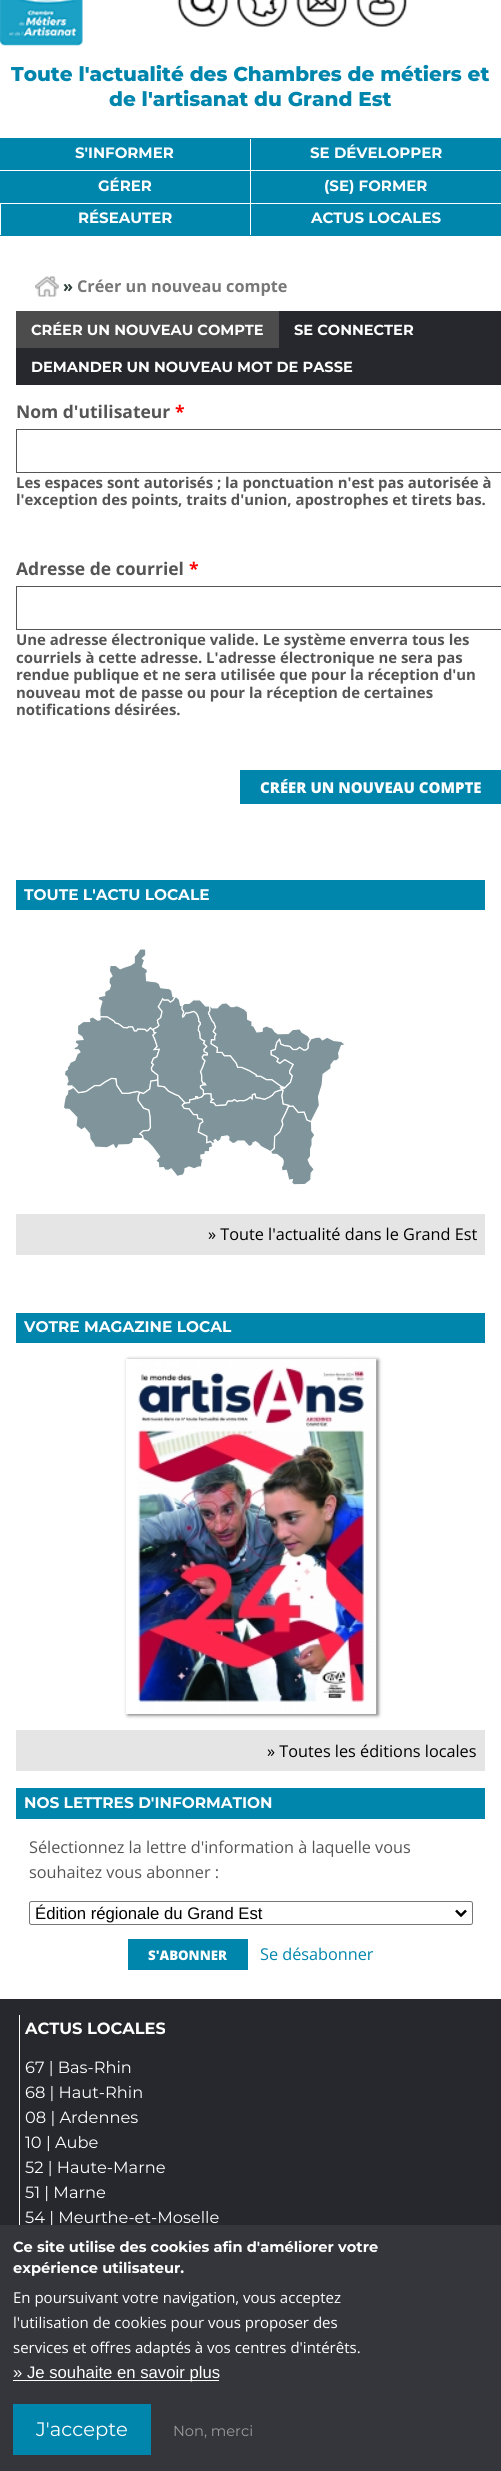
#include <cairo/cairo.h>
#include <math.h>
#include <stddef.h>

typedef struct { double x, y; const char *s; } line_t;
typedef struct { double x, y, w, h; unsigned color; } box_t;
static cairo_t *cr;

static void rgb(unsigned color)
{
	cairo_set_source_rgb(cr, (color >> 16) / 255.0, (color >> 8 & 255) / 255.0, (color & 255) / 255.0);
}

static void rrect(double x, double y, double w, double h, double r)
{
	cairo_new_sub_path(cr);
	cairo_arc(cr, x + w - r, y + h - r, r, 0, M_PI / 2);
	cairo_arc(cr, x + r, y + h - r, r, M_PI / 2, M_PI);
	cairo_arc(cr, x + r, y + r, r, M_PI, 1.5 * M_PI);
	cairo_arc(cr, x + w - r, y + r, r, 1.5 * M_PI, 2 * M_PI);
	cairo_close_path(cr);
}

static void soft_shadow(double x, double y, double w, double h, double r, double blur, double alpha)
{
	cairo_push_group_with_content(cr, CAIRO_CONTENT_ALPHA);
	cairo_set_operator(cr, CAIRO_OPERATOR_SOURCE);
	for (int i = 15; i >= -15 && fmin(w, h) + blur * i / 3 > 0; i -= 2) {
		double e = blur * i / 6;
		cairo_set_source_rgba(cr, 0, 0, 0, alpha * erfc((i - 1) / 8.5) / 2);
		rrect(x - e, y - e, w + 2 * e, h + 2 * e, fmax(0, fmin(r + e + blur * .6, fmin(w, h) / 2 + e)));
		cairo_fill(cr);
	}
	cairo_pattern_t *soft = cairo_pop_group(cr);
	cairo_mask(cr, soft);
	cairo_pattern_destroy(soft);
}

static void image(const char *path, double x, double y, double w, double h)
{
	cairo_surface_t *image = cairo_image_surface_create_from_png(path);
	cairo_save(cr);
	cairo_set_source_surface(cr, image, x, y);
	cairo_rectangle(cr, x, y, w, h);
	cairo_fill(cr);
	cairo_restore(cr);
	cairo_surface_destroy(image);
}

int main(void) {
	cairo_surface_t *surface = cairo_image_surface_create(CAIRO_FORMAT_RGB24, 501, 2471);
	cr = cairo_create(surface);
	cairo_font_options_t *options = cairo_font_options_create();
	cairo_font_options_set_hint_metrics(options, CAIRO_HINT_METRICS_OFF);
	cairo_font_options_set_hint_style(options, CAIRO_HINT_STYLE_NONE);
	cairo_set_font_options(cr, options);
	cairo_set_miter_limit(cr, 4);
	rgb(0xffffff);
	cairo_paint(cr);
	image("img/1.png", 0, 0, 83, 46);
	image("img/2.png", 177, 0, 51, 27);
	image("img/3.png", 237, 0, 51, 27);
	image("img/4.png", 296, 0, 51, 27);
	image("img/5.png", 356, 0, 51, 27);
	{
		static const box_t items[] = {
			{0, 138, 501, 98, 0x0085ad},
			{250, 139, 1, 96, 0xffffff},
			{0, 170, 501, 1, 0xffffff},
			{0, 203, 501, 1, 0xffffff},
			{0, 204, 1, 31, 0xffffff},
		};
		for (size_t i = 0; i < sizeof items / sizeof *items; i++) {
			rgb(items[i].color);
			cairo_rectangle(cr, items[i].x, items[i].y, items[i].w, items[i].h);
			cairo_fill(cr);
		}
	}
	image("img/6.png", 35, 276, 24, 21);
	rgb(0x27282d);
	cairo_rectangle(cr, 16, 311, 485, 74);
	cairo_fill(cr);
	rgb(0x4c4c4c);
	cairo_rectangle(cr, 16, 311, 263, 37);
	cairo_fill(cr);
	cairo_rectangle(cr, 16.5, 429.5, 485, 43);
	rgb(0x555555);
	cairo_set_line_width(cr, 1);
	cairo_stroke(cr);
	cairo_rectangle(cr, 16.5, 586.5, 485, 43);
	cairo_stroke(cr);
	rgb(0x0085ad);
	cairo_rectangle(cr, 240, 770, 261, 34);
	cairo_fill(cr);
	cairo_rectangle(cr, 16, 880, 469, 30);
	cairo_fill(cr);
	image("img/7.png", 63, 949, 282, 236);
	rgb(0xe5e5e5);
	cairo_rectangle(cr, 16, 1214, 469, 41);
	cairo_fill(cr);
	rgb(0x0085ad);
	cairo_rectangle(cr, 16, 1313, 469, 30);
	cairo_fill(cr);
	rgb(0x666666);
	soft_shadow(128, 1360, 250, 355, 0, 2, 1);
	rgb(0xffffff);
	cairo_rectangle(cr, 126, 1359, 11, 355);
	cairo_fill(cr);
	image("img/8.png", 137, 1359, 240, 355);
	rgb(0xe5e5e5);
	cairo_rectangle(cr, 16, 1730, 469, 41);
	cairo_fill(cr);
	rgb(0x0085ad);
	cairo_rectangle(cr, 16, 1788, 469, 31);
	cairo_fill(cr);
	rrect(29.5, 1901.5, 443, 23, 2);
	rgb(0x767676);
	cairo_stroke(cr);
	cairo_new_path(cr);
	cairo_move_to(cr, 456, 1910.5);
	cairo_line_to(cr, 461, 1915.5);
	cairo_line_to(cr, 466, 1910.5);
	rgb(0x000000);
	cairo_set_line_width(cr, 2.5);
	cairo_stroke(cr);
	{
		static const box_t items[] = {
			{128, 1939, 120, 31, 0x0085ad},
			{0, 1999, 501, 226, 0x27282d},
			{19, 2015, 1, 210, 0xffffff},
		};
		for (size_t i = 0; i < sizeof items / sizeof *items; i++) {
			rgb(items[i].color);
			cairo_rectangle(cr, items[i].x, items[i].y, items[i].w, items[i].h);
			cairo_fill(cr);
		}
	}
	cairo_select_font_face(cr, "Montserrat ExtraBold", CAIRO_FONT_SLANT_NORMAL, CAIRO_FONT_WEIGHT_NORMAL);
	cairo_set_font_size(cr, 20);
	rgb(0x0085ad);
	cairo_move_to(cr, 11, 81);
	cairo_show_text(cr, "Toute l'actualité des Chambres de métiers et");
	cairo_move_to(cr, 109, 106);
	cairo_show_text(cr, "de l'artisanat du Grand Est");
	cairo_select_font_face(cr, "Montserrat", CAIRO_FONT_SLANT_NORMAL, CAIRO_FONT_WEIGHT_BOLD);
	cairo_set_font_size(cr, 15);
	rgb(0xffffff);
	{
		static const line_t items[] = {
			{75, 158, "S'INFORMER"},
			{310, 158, "SE DÉVELOPPER"},
			{98, 191, "GÉRER"},
			{324, 191, "(SE) FORMER"},
			{78, 223, "RÉSEAUTER"},
			{311, 223, "ACTUS LOCALES"},
		};
		for (size_t i = 0; i < sizeof items / sizeof *items; i++) {
			cairo_move_to(cr, items[i].x, items[i].y);
			cairo_show_text(cr, items[i].s);
		}
	}
	cairo_select_font_face(cr, "Open Sans", CAIRO_FONT_SLANT_NORMAL, CAIRO_FONT_WEIGHT_BOLD);
	cairo_set_font_size(cr, 16.25);
	rgb(0x283c33);
	cairo_move_to(cr, 63, 292);
	cairo_show_text(cr, "»");
	rgb(0x777777);
	cairo_move_to(cr, 77, 292);
	cairo_show_text(cr, "Créer un nouveau compte");
	cairo_select_font_face(cr, "Montserrat", CAIRO_FONT_SLANT_NORMAL, CAIRO_FONT_WEIGHT_BOLD);
	cairo_set_font_size(cr, 14.6);
	rgb(0xffffff);
	{
		static const line_t items[] = {
			{31, 335, "CRÉER UN NOUVEAU COMPTE"},
			{294, 335, "SE CONNECTER"},
			{31, 372, "DEMANDER UN NOUVEAU MOT DE PASSE"},
		};
		for (size_t i = 0; i < sizeof items / sizeof *items; i++) {
			cairo_move_to(cr, items[i].x, items[i].y);
			cairo_show_text(cr, items[i].s);
		}
	}
	cairo_select_font_face(cr, "Open Sans", CAIRO_FONT_SLANT_NORMAL, CAIRO_FONT_WEIGHT_BOLD);
	cairo_set_font_size(cr, 17.5);
	rgb(0x555555);
	cairo_move_to(cr, 16, 418);
	cairo_show_text(cr, "Nom d'utilisateur");
	rgb(0xff0000);
	cairo_move_to(cr, 175, 418);
	cairo_show_text(cr, "*");
	cairo_set_font_size(cr, 14.9);
	rgb(0x555555);
	cairo_move_to(cr, 16, 488);
	cairo_show_text(cr, "Les espaces sont autorisés ; la ponctuation n'est pas autorisée à");
	cairo_move_to(cr, 16, 505);
	cairo_show_text(cr, "l'exception des points, traits d'union, apostrophes et tirets bas.");
	cairo_set_font_size(cr, 17.5);
	cairo_move_to(cr, 16, 575);
	cairo_show_text(cr, "Adresse de courriel");
	rgb(0xff0000);
	cairo_move_to(cr, 189, 575);
	cairo_show_text(cr, "*");
	cairo_set_font_size(cr, 14.9);
	rgb(0x555555);
	{
		static const line_t items[] = {
			{16, 645, "Une adresse électronique valide. Le système enverra tous les"},
			{16, 663, "courriels à cette adresse. L'adresse électronique ne sera pas"},
			{16, 680, "rendue publique et ne sera utilisée que pour la réception d'un"},
			{16, 698, "nouveau mot de passe ou pour la réception de certaines"},
			{16, 715, "notifications désirées."},
		};
		for (size_t i = 0; i < sizeof items / sizeof *items; i++) {
			cairo_move_to(cr, items[i].x, items[i].y);
			cairo_show_text(cr, items[i].s);
		}
	}
	cairo_select_font_face(cr, "Open Sans ExtraBold", CAIRO_FONT_SLANT_NORMAL, CAIRO_FONT_WEIGHT_NORMAL);
	cairo_set_font_size(cr, 15);
	rgb(0xffffff);
	cairo_move_to(cr, 260, 793);
	cairo_show_text(cr, "CRÉER UN NOUVEAU COMPTE");
	cairo_select_font_face(cr, "Montserrat", CAIRO_FONT_SLANT_NORMAL, CAIRO_FONT_WEIGHT_BOLD);
	cairo_set_font_size(cr, 15.4);
	cairo_move_to(cr, 24, 900);
	cairo_show_text(cr, "TOUTE L'ACTU LOCALE");
	cairo_select_font_face(cr, "Open Sans", CAIRO_FONT_SLANT_NORMAL, CAIRO_FONT_WEIGHT_NORMAL);
	cairo_set_font_size(cr, 16.25);
	rgb(0x000000);
	cairo_move_to(cr, 208, 1240);
	cairo_show_text(cr, "» Toute l'actualité dans le Grand Est");
	cairo_select_font_face(cr, "Montserrat", CAIRO_FONT_SLANT_NORMAL, CAIRO_FONT_WEIGHT_BOLD);
	cairo_set_font_size(cr, 15.4);
	rgb(0xffffff);
	cairo_move_to(cr, 24, 1332);
	cairo_show_text(cr, "VOTRE MAGAZINE LOCAL");
	cairo_select_font_face(cr, "Open Sans", CAIRO_FONT_SLANT_NORMAL, CAIRO_FONT_WEIGHT_NORMAL);
	cairo_set_font_size(cr, 16.25);
	rgb(0x000000);
	cairo_move_to(cr, 267, 1757);
	cairo_show_text(cr, "» Toutes les éditions locales");
	cairo_select_font_face(cr, "Montserrat", CAIRO_FONT_SLANT_NORMAL, CAIRO_FONT_WEIGHT_BOLD);
	cairo_set_font_size(cr, 15.4);
	rgb(0xffffff);
	cairo_move_to(cr, 24, 1808);
	cairo_show_text(cr, "NOS LETTRES D'INFORMATION");
	cairo_select_font_face(cr, "Open Sans", CAIRO_FONT_SLANT_NORMAL, CAIRO_FONT_WEIGHT_NORMAL);
	cairo_set_font_size(cr, 16.25);
	rgb(0x555555);
	cairo_move_to(cr, 29, 1853);
	cairo_show_text(cr, "Sélectionnez la lettre d'information à laquelle vous");
	cairo_move_to(cr, 29, 1878);
	cairo_show_text(cr, "souhaitez vous abonner :");
	cairo_select_font_face(cr, "Liberation Sans", CAIRO_FONT_SLANT_NORMAL, CAIRO_FONT_WEIGHT_NORMAL);
	cairo_set_font_size(cr, 16.7);
	rgb(0x000000);
	cairo_move_to(cr, 35, 1919);
	cairo_show_text(cr, "Édition régionale du Grand Est");
	cairo_select_font_face(cr, "Open Sans ExtraBold", CAIRO_FONT_SLANT_NORMAL, CAIRO_FONT_WEIGHT_NORMAL);
	cairo_set_font_size(cr, 13.25);
	rgb(0xffffff);
	cairo_move_to(cr, 148, 1960);
	cairo_show_text(cr, "S'ABONNER");
	cairo_select_font_face(cr, "Open Sans", CAIRO_FONT_SLANT_NORMAL, CAIRO_FONT_WEIGHT_NORMAL);
	cairo_set_font_size(cr, 16.25);
	rgb(0x0085ad);
	cairo_move_to(cr, 260, 1960);
	cairo_show_text(cr, "Se désabonner");
	cairo_select_font_face(cr, "Montserrat", CAIRO_FONT_SLANT_NORMAL, CAIRO_FONT_WEIGHT_BOLD);
	rgb(0xffffff);
	cairo_move_to(cr, 25, 2034);
	cairo_show_text(cr, "ACTUS LOCALES");
	cairo_select_font_face(cr, "Montserrat", CAIRO_FONT_SLANT_NORMAL, CAIRO_FONT_WEIGHT_NORMAL);
	{
		static const line_t items[] = {
			{25, 2073, "67 | Bas-Rhin"},
			{25, 2098, "68 | Haut-Rhin"},
			{25, 2123, "08 | Ardennes"},
			{25, 2148, "10 | Aube"},
			{25, 2173, "52 | Haute-Marne"},
			{25, 2198, "51 | Marne"},
			{25, 2223, "54 | Meurthe-et-Moselle"},
		};
		for (size_t i = 0; i < sizeof items / sizeof *items; i++) {
			cairo_move_to(cr, items[i].x, items[i].y);
			cairo_show_text(cr, items[i].s);
		}
	}
	rgb(0x35363b);
	cairo_rectangle(cr, 0, 2225, 501, 246);
	cairo_fill(cr);
	cairo_select_font_face(cr, "Montserrat", CAIRO_FONT_SLANT_NORMAL, CAIRO_FONT_WEIGHT_BOLD);
	cairo_set_font_size(cr, 14.6);
	rgb(0xffffff);
	cairo_move_to(cr, 13, 2252);
	cairo_show_text(cr, "Ce site utilise des cookies afin d'améliorer votre");
	cairo_move_to(cr, 13, 2273);
	cairo_show_text(cr, "expérience utilisateur.");
	cairo_select_font_face(cr, "Open Sans", CAIRO_FONT_SLANT_NORMAL, CAIRO_FONT_WEIGHT_NORMAL);
	cairo_set_font_size(cr, 15);
	{
		static const line_t items[] = {
			{13, 2303, "En poursuivant votre navigation, vous acceptez"},
			{13, 2328, "l'utilisation de cookies pour vous proposer des"},
			{13, 2353, "services et offres adaptés à vos centres d'intérêts."},
		};
		for (size_t i = 0; i < sizeof items / sizeof *items; i++) {
			cairo_move_to(cr, items[i].x, items[i].y);
			cairo_show_text(cr, items[i].s);
		}
	}
	cairo_rectangle(cr, 13, 2380, 206, 1);
	cairo_fill(cr);
	cairo_select_font_face(cr, "Liberation Sans", CAIRO_FONT_SLANT_NORMAL, CAIRO_FONT_WEIGHT_NORMAL);
	cairo_set_font_size(cr, 16.7);
	cairo_move_to(cr, 13, 2378);
	cairo_show_text(cr, "» Je souhaite en savoir plus");
	rgb(0x0085ad);
	cairo_rectangle(cr, 13, 2404, 138, 51);
	cairo_fill(cr);
	cairo_select_font_face(cr, "Montserrat", CAIRO_FONT_SLANT_NORMAL, CAIRO_FONT_WEIGHT_NORMAL);
	cairo_set_font_size(cr, 19.5);
	rgb(0xffffff);
	cairo_move_to(cr, 36, 2436);
	cairo_show_text(cr, "J'accepte");
	cairo_set_font_size(cr, 14.6);
	rgb(0x999999);
	cairo_move_to(cr, 173, 2436);
	cairo_show_text(cr, "Non, merci");
	cairo_surface_write_to_png(surface, "page.png");
	cairo_font_options_destroy(options);
	cairo_destroy(cr);
	cairo_surface_destroy(surface);
	return 0;
}
